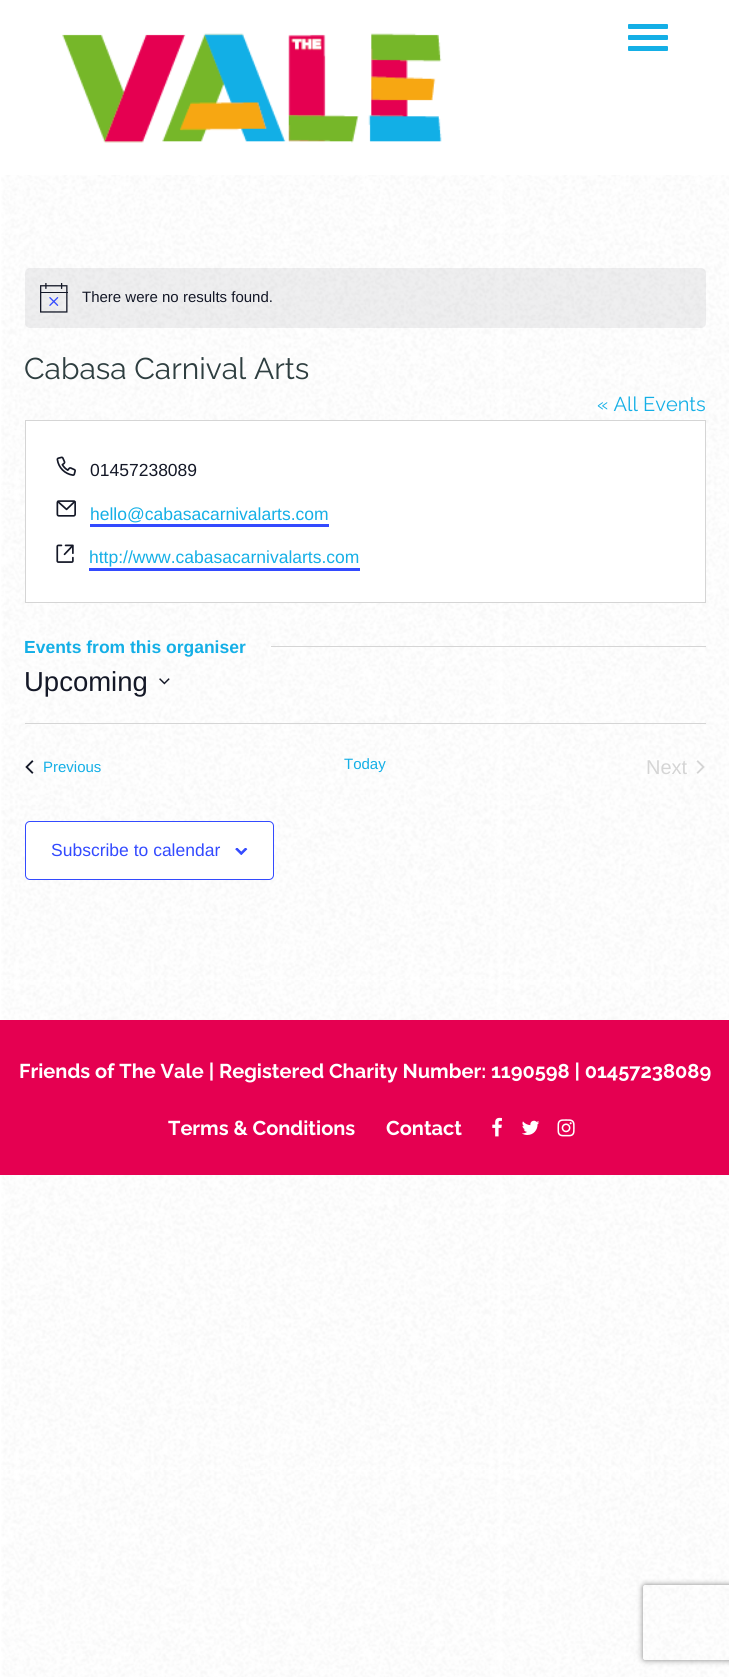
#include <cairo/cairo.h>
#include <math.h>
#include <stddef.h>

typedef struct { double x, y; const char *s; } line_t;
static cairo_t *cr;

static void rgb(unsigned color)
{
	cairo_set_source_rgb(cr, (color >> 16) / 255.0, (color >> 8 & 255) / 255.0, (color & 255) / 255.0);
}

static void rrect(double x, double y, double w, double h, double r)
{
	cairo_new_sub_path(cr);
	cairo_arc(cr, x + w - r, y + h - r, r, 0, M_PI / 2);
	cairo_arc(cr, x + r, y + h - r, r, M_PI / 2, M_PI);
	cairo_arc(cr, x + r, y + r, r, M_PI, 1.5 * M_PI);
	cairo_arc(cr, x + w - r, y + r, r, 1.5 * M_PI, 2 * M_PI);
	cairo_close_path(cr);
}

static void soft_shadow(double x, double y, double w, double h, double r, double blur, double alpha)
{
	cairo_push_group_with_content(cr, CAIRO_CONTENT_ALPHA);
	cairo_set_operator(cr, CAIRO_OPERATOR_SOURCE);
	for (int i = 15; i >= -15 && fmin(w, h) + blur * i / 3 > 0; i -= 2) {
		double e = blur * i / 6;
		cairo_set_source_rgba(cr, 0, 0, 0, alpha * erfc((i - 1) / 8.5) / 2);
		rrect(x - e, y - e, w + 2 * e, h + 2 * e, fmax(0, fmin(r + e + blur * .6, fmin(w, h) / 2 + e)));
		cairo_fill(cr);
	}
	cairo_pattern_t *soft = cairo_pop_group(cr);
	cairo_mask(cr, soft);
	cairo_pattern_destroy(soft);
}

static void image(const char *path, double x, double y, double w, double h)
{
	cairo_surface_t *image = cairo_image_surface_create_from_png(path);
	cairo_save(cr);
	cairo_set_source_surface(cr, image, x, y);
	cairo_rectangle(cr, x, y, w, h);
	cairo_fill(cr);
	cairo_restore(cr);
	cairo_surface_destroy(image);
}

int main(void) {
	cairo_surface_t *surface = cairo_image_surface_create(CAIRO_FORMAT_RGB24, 729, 1677);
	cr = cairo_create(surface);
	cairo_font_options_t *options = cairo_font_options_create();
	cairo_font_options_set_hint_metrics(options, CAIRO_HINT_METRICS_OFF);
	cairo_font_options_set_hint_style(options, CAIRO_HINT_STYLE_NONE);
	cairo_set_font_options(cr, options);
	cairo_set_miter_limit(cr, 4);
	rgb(0xffffff);
	cairo_paint(cr);
	image("img/1.png", 1, 175, 728, 1502);
	image("img/2.png", 62, 33, 380, 110);
	rgb(0x14afe6);
	rrect(628, 24, 40, 5, 1);
	cairo_fill(cr);
	rrect(628, 35, 40, 5, 1);
	cairo_fill(cr);
	rrect(628, 46, 40, 5, 1);
	cairo_fill(cr);
	cairo_set_source_rgba(cr, 0.078, 0.094, 0.153, 0.07);
	rrect(25, 268, 681, 60, 5);
	cairo_fill(cr);
	image("img/3.png", 40, 283, 28, 30);
	rgb(0xffffff);
	cairo_rectangle(cr, 25.5, 420.5, 680, 182);
	cairo_fill_preserve(cr);
	rgb(0xd5d5d5);
	cairo_set_line_width(cr, 1);
	cairo_stroke(cr);
	image("img/4.png", 56, 456, 20, 20);
	image("img/5.png", 56, 500, 20, 17);
	rgb(0x334aff);
	cairo_rectangle(cr, 90, 524, 239, 3);
	cairo_fill(cr);
	image("img/6.png", 56, 544, 18, 19);
	cairo_rectangle(cr, 89, 568, 271, 3);
	cairo_fill(cr);
	rgb(0xd5d5d5);
	cairo_rectangle(cr, 271, 646, 435, 1);
	cairo_fill(cr);
	image("img/7.png", 159, 678, 11, 7);
	cairo_rectangle(cr, 25, 723, 681, 1);
	cairo_fill(cr);
	image("img/8.png", 25, 760, 9, 14);
	image("img/9.png", 696, 760, 9, 14);
	rgb(0xffffff);
	rrect(25.5, 821.5, 248, 58, 4.5);
	cairo_fill_preserve(cr);
	rgb(0x334aff);
	cairo_stroke(cr);
	image("img/10.png", 235, 848, 13, 7);
	rgb(0xe50051);
	cairo_rectangle(cr, 0, 1020, 729, 155);
	cairo_fill(cr);
	image("img/11.png", 492, 1117, 10, 20);
	image("img/12.png", 522, 1120, 18, 15);
	image("img/13.png", 557, 1119, 18, 18);
	cairo_save(cr);
	cairo_set_fill_rule(cr, CAIRO_FILL_RULE_EVEN_ODD);
	cairo_new_path(cr);
	cairo_move_to(cr, 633, 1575);
	cairo_line_to(cr, 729, 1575);
	cairo_line_to(cr, 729, 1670);
	cairo_line_to(cr, 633, 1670);
	cairo_close_path(cr);
	cairo_move_to(cr, 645.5, 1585);
	cairo_line_to(cr, 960.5, 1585);
	cairo_curve_to(cr, 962, 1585, 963, 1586, 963, 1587.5);
	cairo_line_to(cr, 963, 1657.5);
	cairo_curve_to(cr, 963, 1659, 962, 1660, 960.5, 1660);
	cairo_line_to(cr, 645.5, 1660);
	cairo_curve_to(cr, 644, 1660, 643, 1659, 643, 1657.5);
	cairo_line_to(cr, 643, 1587.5);
	cairo_curve_to(cr, 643, 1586, 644, 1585, 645.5, 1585);
	cairo_close_path(cr);
	cairo_clip(cr);
	rgb(0x808080);
	soft_shadow(643, 1585, 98, 75, 2.5, 3, 1);
	cairo_restore(cr);
	cairo_select_font_face(cr, "Liberation Sans", CAIRO_FONT_SLANT_NORMAL, CAIRO_FONT_WEIGHT_NORMAL);
	cairo_set_font_size(cr, 15);
	rgb(0x141827);
	cairo_move_to(cr, 82, 302);
	cairo_show_text(cr, "There were no results found.");
	cairo_select_font_face(cr, "Raleway Thin", CAIRO_FONT_SLANT_NORMAL, CAIRO_FONT_WEIGHT_NORMAL);
	cairo_set_font_size(cr, 30);
	rgb(0x2e3e40);
	cairo_move_to(cr, 24, 379);
	cairo_show_text(cr, "Cabasa Carnival Arts");
	cairo_set_font_size(cr, 20);
	rgb(0x14afe6);
	cairo_move_to(cr, 597, 411);
	cairo_show_text(cr, "« All Events");
	cairo_select_font_face(cr, "Liberation Sans", CAIRO_FONT_SLANT_NORMAL, CAIRO_FONT_WEIGHT_NORMAL);
	cairo_set_font_size(cr, 17.5);
	rgb(0x141827);
	cairo_move_to(cr, 90, 476);
	cairo_show_text(cr, "01457238089");
	rgb(0x14afe6);
	cairo_move_to(cr, 90, 520);
	cairo_show_text(cr, "hello@cabasacarnivalarts.com");
	cairo_move_to(cr, 89, 563);
	cairo_show_text(cr, "http://www.cabasacarnivalarts.com");
	cairo_select_font_face(cr, "Liberation Sans", CAIRO_FONT_SLANT_NORMAL, CAIRO_FONT_WEIGHT_BOLD);
	cairo_move_to(cr, 24, 653);
	cairo_show_text(cr, "Events from this organiser");
	cairo_select_font_face(cr, "Liberation Sans", CAIRO_FONT_SLANT_NORMAL, CAIRO_FONT_WEIGHT_NORMAL);
	cairo_set_font_size(cr, 27.5);
	rgb(0x141827);
	cairo_move_to(cr, 24, 691);
	cairo_show_text(cr, "Upcoming");
	cairo_set_font_size(cr, 15);
	rgb(0x14afe6);
	cairo_move_to(cr, 43, 772);
	cairo_show_text(cr, "Previous");
	cairo_move_to(cr, 344, 769);
	cairo_show_text(cr, "Today");
	cairo_set_font_size(cr, 20);
	rgb(0xd5d5d5);
	cairo_move_to(cr, 646, 774);
	cairo_show_text(cr, "Next");
	cairo_set_font_size(cr, 17.5);
	rgb(0x334aff);
	cairo_move_to(cr, 51, 856);
	cairo_show_text(cr, "Subscribe to calendar");
	cairo_select_font_face(cr, "Raleway", CAIRO_FONT_SLANT_NORMAL, CAIRO_FONT_WEIGHT_BOLD);
	cairo_set_font_size(cr, 20);
	rgb(0xffffff);
	{
		static const line_t items[] = {
			{19, 1078, "Friends of The Vale | Registered Charity Number: 1190598 | 01457238089"},
			{168, 1135, "Terms & Conditions"},
			{386, 1135, "Contact"},
		};
		for (size_t i = 0; i < sizeof items / sizeof *items; i++) {
			cairo_move_to(cr, items[i].x, items[i].y);
			cairo_show_text(cr, items[i].s);
		}
	}
	cairo_surface_write_to_png(surface, "page.png");
	cairo_font_options_destroy(options);
	cairo_destroy(cr);
	cairo_surface_destroy(surface);
	return 0;
}
